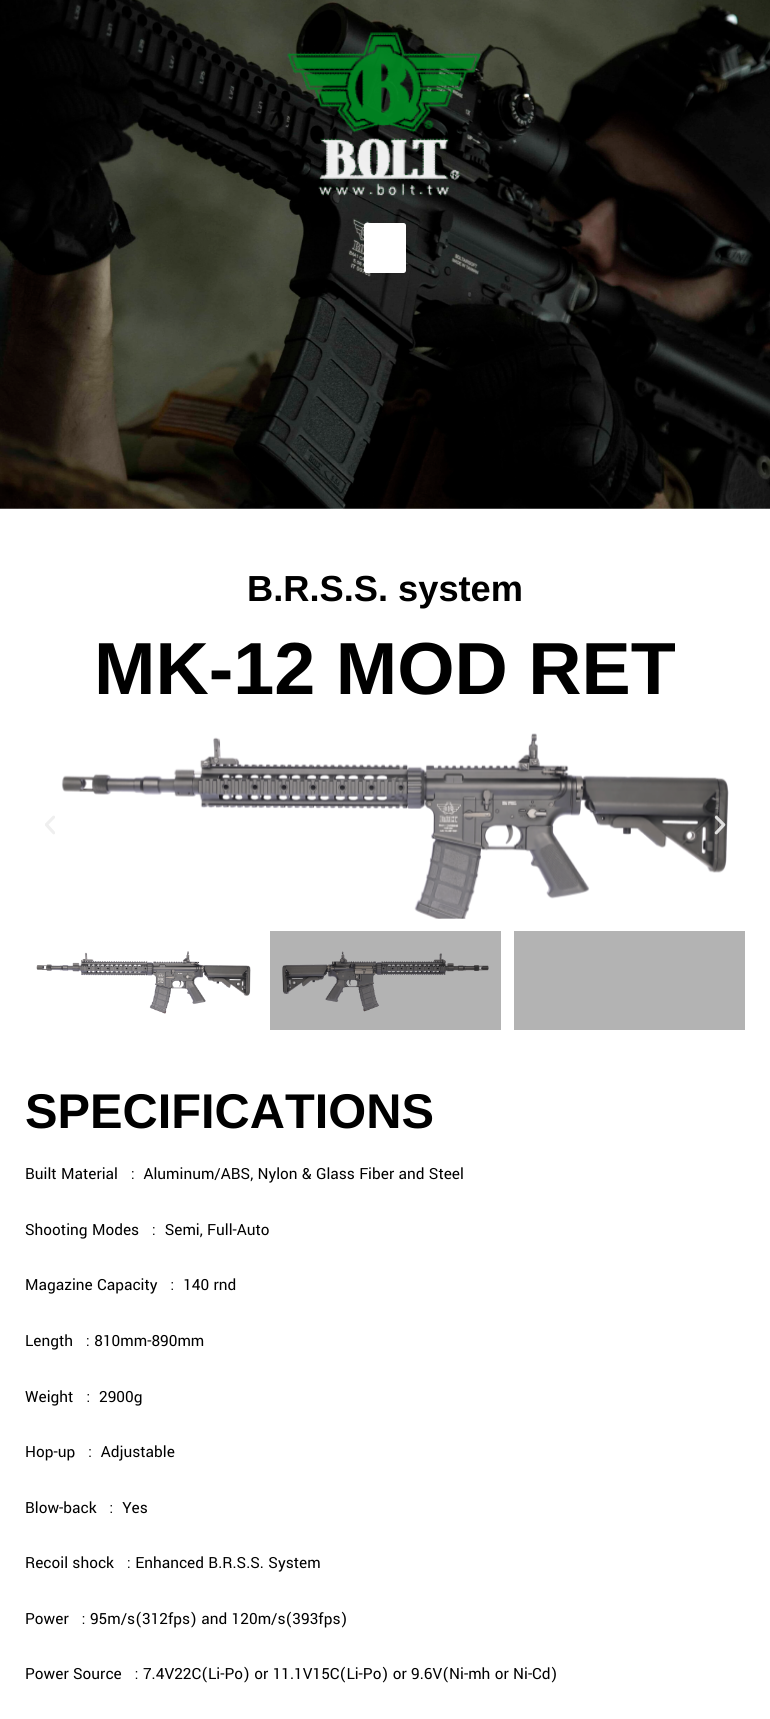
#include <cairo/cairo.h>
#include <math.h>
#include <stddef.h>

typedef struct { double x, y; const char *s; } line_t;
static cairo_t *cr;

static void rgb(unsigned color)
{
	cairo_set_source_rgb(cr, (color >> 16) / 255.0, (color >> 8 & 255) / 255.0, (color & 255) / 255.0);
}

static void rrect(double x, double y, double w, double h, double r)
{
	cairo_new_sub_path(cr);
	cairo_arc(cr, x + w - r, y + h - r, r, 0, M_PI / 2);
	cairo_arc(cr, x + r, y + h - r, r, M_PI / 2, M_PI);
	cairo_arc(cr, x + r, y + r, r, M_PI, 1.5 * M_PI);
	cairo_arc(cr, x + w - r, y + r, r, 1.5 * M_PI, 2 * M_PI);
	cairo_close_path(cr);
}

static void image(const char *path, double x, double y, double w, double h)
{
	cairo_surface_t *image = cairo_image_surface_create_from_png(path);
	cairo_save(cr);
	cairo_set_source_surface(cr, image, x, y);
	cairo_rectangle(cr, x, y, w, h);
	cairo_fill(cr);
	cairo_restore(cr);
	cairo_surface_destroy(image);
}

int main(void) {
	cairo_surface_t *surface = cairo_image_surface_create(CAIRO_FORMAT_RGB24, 770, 1719);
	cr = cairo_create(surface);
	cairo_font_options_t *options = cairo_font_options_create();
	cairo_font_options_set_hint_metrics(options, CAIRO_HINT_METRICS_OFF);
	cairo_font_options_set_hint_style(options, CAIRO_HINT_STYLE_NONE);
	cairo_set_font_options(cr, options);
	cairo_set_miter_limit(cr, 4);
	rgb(0xffffff);
	cairo_paint(cr);
	rgb(0xb3b3b3);
	cairo_rectangle(cr, 270, 931, 231, 99);
	cairo_fill(cr);
	image("img/2.png", 0, 0, 770, 509);
	image("img/1.png", 287, 32, 195, 165);
	rgb(0xffffff);
	rrect(364, 223, 42, 50, 2.5);
	cairo_fill(cr);
	image("img/3.png", 45, 815, 10, 20);
	image("img/4.png", 61, 733, 668, 186);
	image("img/5.png", 714, 815, 12, 20);
	image("img/6.png", 36, 951, 215, 63);
	image("img/7.png", 282, 951, 207, 61);
	rgb(0xb3b3b3);
	cairo_rectangle(cr, 514, 931, 231, 99);
	cairo_fill(cr);
	cairo_select_font_face(cr, "Liberation Sans", CAIRO_FONT_SLANT_NORMAL, CAIRO_FONT_WEIGHT_BOLD);
	cairo_set_font_size(cr, 36.25);
	rgb(0x000000);
	cairo_move_to(cr, 247, 601);
	cairo_show_text(cr, "B.R.S.S. system");
	cairo_set_font_size(cr, 73.75);
	cairo_move_to(cr, 94, 694);
	cairo_show_text(cr, "MK-12 MOD RET");
	cairo_set_font_size(cr, 48.75);
	cairo_move_to(cr, 25, 1128);
	cairo_show_text(cr, "SPECIFICATIONS");
	cairo_select_font_face(cr, "Yantramanav", CAIRO_FONT_SLANT_NORMAL, CAIRO_FONT_WEIGHT_NORMAL);
	cairo_set_font_size(cr, 17.1);
	{
		static const line_t items[] = {
			{25, 1179, "Built Material   :  Aluminum/ABS, Nylon & Glass Fiber and Steel"},
			{25, 1235, "Shooting Modes   :  Semi, Full-Auto"},
			{25, 1290, "Magazine Capacity   :  140 rnd"},
			{25, 1346, "Length   : 810mm-890mm"},
			{25, 1402, "Weight   :  2900g"},
			{25, 1457, "Hop-up   :  Adjustable"},
			{25, 1513, "Blow-back   :  Yes"},
			{25, 1568, "Recoil shock   : Enhanced B.R.S.S. System"},
			{25, 1624, "Power   : 95m/s(312fps) and 120m/s(393fps)"},
			{25, 1679, "Power Source   : 7.4V22C(Li-Po) or 11.1V15C(Li-Po) or 9.6V(Ni-mh or Ni-Cd)"},
		};
		for (size_t i = 0; i < sizeof items / sizeof *items; i++) {
			cairo_move_to(cr, items[i].x, items[i].y);
			cairo_show_text(cr, items[i].s);
		}
	}
	cairo_surface_write_to_png(surface, "page.png");
	cairo_font_options_destroy(options);
	cairo_destroy(cr);
	cairo_surface_destroy(surface);
	return 0;
}
